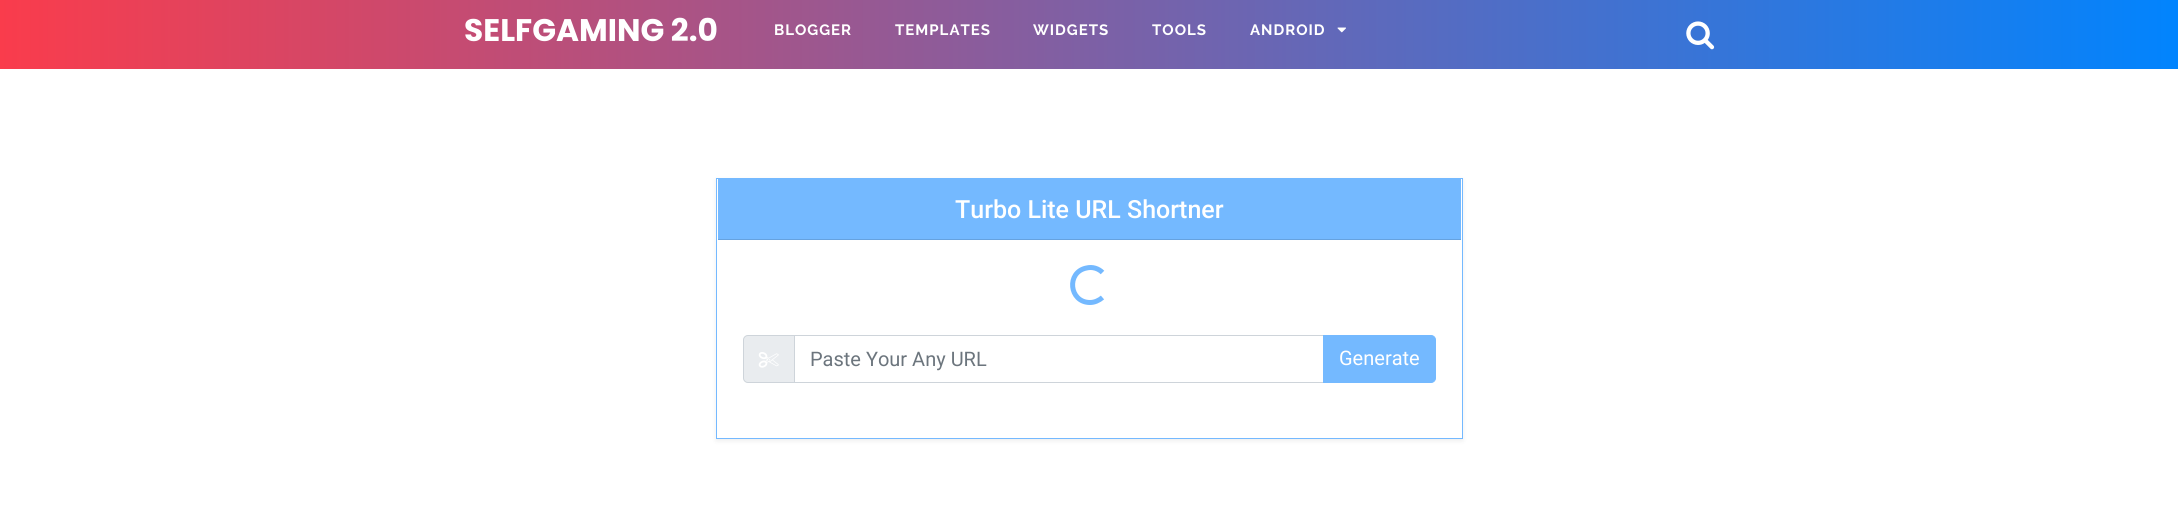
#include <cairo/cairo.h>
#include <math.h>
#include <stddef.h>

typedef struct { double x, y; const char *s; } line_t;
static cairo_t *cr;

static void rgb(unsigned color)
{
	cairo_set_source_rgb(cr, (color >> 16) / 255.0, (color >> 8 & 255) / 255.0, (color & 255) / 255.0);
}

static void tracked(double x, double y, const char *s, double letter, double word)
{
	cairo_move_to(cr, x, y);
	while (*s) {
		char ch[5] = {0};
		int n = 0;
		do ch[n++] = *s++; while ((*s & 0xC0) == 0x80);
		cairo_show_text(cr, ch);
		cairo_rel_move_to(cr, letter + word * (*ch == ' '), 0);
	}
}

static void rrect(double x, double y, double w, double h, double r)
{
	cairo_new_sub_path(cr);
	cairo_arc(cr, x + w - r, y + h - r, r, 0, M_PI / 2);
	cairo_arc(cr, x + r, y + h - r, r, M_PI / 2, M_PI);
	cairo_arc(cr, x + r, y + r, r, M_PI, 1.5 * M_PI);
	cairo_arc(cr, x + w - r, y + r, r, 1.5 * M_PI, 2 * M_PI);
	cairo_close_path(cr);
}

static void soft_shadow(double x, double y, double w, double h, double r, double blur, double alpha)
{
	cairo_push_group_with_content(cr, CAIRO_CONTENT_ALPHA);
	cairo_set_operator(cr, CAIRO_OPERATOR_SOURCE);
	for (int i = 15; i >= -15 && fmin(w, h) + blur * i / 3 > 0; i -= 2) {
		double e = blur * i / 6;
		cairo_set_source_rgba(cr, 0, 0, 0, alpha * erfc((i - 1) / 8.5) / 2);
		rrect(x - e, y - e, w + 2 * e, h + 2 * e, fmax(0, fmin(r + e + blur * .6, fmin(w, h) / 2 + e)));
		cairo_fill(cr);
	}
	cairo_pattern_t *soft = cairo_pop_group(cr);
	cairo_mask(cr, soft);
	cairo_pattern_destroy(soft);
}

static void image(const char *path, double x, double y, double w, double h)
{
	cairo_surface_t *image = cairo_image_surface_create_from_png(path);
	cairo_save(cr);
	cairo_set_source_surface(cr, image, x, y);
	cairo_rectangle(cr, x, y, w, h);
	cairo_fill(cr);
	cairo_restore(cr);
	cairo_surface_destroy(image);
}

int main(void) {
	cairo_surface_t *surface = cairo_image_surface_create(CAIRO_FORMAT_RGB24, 2178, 514);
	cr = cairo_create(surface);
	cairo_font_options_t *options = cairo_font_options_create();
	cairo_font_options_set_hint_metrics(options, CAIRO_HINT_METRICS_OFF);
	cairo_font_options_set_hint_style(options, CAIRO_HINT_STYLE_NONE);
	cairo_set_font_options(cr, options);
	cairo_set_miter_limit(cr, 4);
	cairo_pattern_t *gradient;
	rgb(0xffffff);
	cairo_paint(cr);
	gradient = cairo_pattern_create_linear(0, 34, 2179, 34);
	cairo_pattern_add_color_stop_rgba(gradient, 0, 0.98, 0.235, 0.298, 1);
	cairo_pattern_add_color_stop_rgba(gradient, 1, 0.004, 0.518, 0.996, 1);
	cairo_set_source(cr, gradient);
	cairo_pattern_destroy(gradient);
	cairo_rectangle(cr, 0, 0, 2178, 69);
	cairo_fill(cr);
	image("img/1.png", 1337, 27, 9, 6);
	image("img/2.png", 1686, 21, 29, 29);
	rgb(0x000000);
	soft_shadow(716, 180, 747, 261, 0, 2.5, 0.07);
	rgb(0xffffff);
	cairo_rectangle(cr, 716.5, 178.5, 746, 260);
	cairo_fill_preserve(cr);
	rgb(0x74b9ff);
	cairo_set_line_width(cr, 1);
	cairo_stroke(cr);
	cairo_rectangle(cr, 718, 179, 743, 60);
	cairo_fill(cr);
	rgb(0x66a2df);
	cairo_rectangle(cr, 718, 239, 743, 1);
	cairo_fill(cr);
	cairo_new_path(cr);
	cairo_move_to(cr, 1102.5, 297.5);
	cairo_curve_to(cr, 1099, 300.5, 1094.5, 302.5, 1090, 302.5);
	cairo_curve_to(cr, 1069, 302.5, 1066, 272, 1086.5, 268);
	cairo_curve_to(cr, 1092.5, 266.5, 1098.5, 268.5, 1102.5, 272.5);
	rgb(0x74b9ff);
	cairo_set_line_width(cr, 5);
	cairo_stroke(cr);
	rgb(0xe9ecef);
	cairo_new_path(cr);
	cairo_move_to(cr, 748, 335.5);
	cairo_line_to(cr, 794.5, 335.5);
	cairo_line_to(cr, 794.5, 382.5);
	cairo_line_to(cr, 748, 382.5);
	cairo_curve_to(cr, 745.5, 382.5, 743.5, 380.5, 743.5, 378);
	cairo_line_to(cr, 743.5, 340);
	cairo_curve_to(cr, 743.5, 337.5, 745.5, 335.5, 748, 335.5);
	cairo_close_path(cr);
	cairo_fill_preserve(cr);
	rgb(0xced4da);
	cairo_set_line_width(cr, 1);
	cairo_stroke(cr);
	image("img/3.png", 758, 352, 21, 16);
	cairo_rectangle(cr, 794.5, 335.5, 529, 47);
	cairo_stroke(cr);
	rgb(0x74b9ff);
	cairo_new_path(cr);
	cairo_move_to(cr, 1323.5, 335.5);
	cairo_line_to(cr, 1431, 335.5);
	cairo_curve_to(cr, 1433.5, 335.5, 1435.5, 337.5, 1435.5, 340);
	cairo_line_to(cr, 1435.5, 378);
	cairo_curve_to(cr, 1435.5, 380.5, 1433.5, 382.5, 1431, 382.5);
	cairo_line_to(cr, 1323.5, 382.5);
	cairo_close_path(cr);
	cairo_fill_preserve(cr);
	cairo_stroke(cr);
	cairo_select_font_face(cr, "Poppins", CAIRO_FONT_SLANT_NORMAL, CAIRO_FONT_WEIGHT_BOLD);
	cairo_set_font_size(cr, 31.25);
	rgb(0xffffff);
	cairo_move_to(cr, 464, 41);
	cairo_show_text(cr, "SELFGAMING 2.0");
	cairo_select_font_face(cr, "Raleway", CAIRO_FONT_SLANT_NORMAL, CAIRO_FONT_WEIGHT_BOLD);
	cairo_set_font_size(cr, 15);
	{
		static const line_t items[] = {
			{774, 35, "BLOGGER"},
			{895, 35, "TEMPLATES"},
			{1033, 35, "WIDGETS"},
			{1152, 35, "TOOLS"},
			{1250, 35, "ANDROID"},
		};
		for (size_t i = 0; i < sizeof items / sizeof *items; i++) {
			tracked(items[i].x, items[i].y, items[i].s, 1, 0);
		}
	}
	cairo_select_font_face(cr, "Roboto Medium", CAIRO_FONT_SLANT_NORMAL, CAIRO_FONT_WEIGHT_NORMAL);
	cairo_set_font_size(cr, 25);
	cairo_move_to(cr, 955, 218);
	cairo_show_text(cr, "Turbo Lite URL Shortner");
	cairo_select_font_face(cr, "Roboto", CAIRO_FONT_SLANT_NORMAL, CAIRO_FONT_WEIGHT_NORMAL);
	cairo_set_font_size(cr, 20);
	rgb(0x6c757d);
	cairo_move_to(cr, 810, 366);
	cairo_show_text(cr, "Paste Your Any URL");
	rgb(0xffffff);
	cairo_move_to(cr, 1339, 365);
	cairo_show_text(cr, "Generate");
	cairo_surface_write_to_png(surface, "page.png");
	cairo_font_options_destroy(options);
	cairo_destroy(cr);
	cairo_surface_destroy(surface);
	return 0;
}
